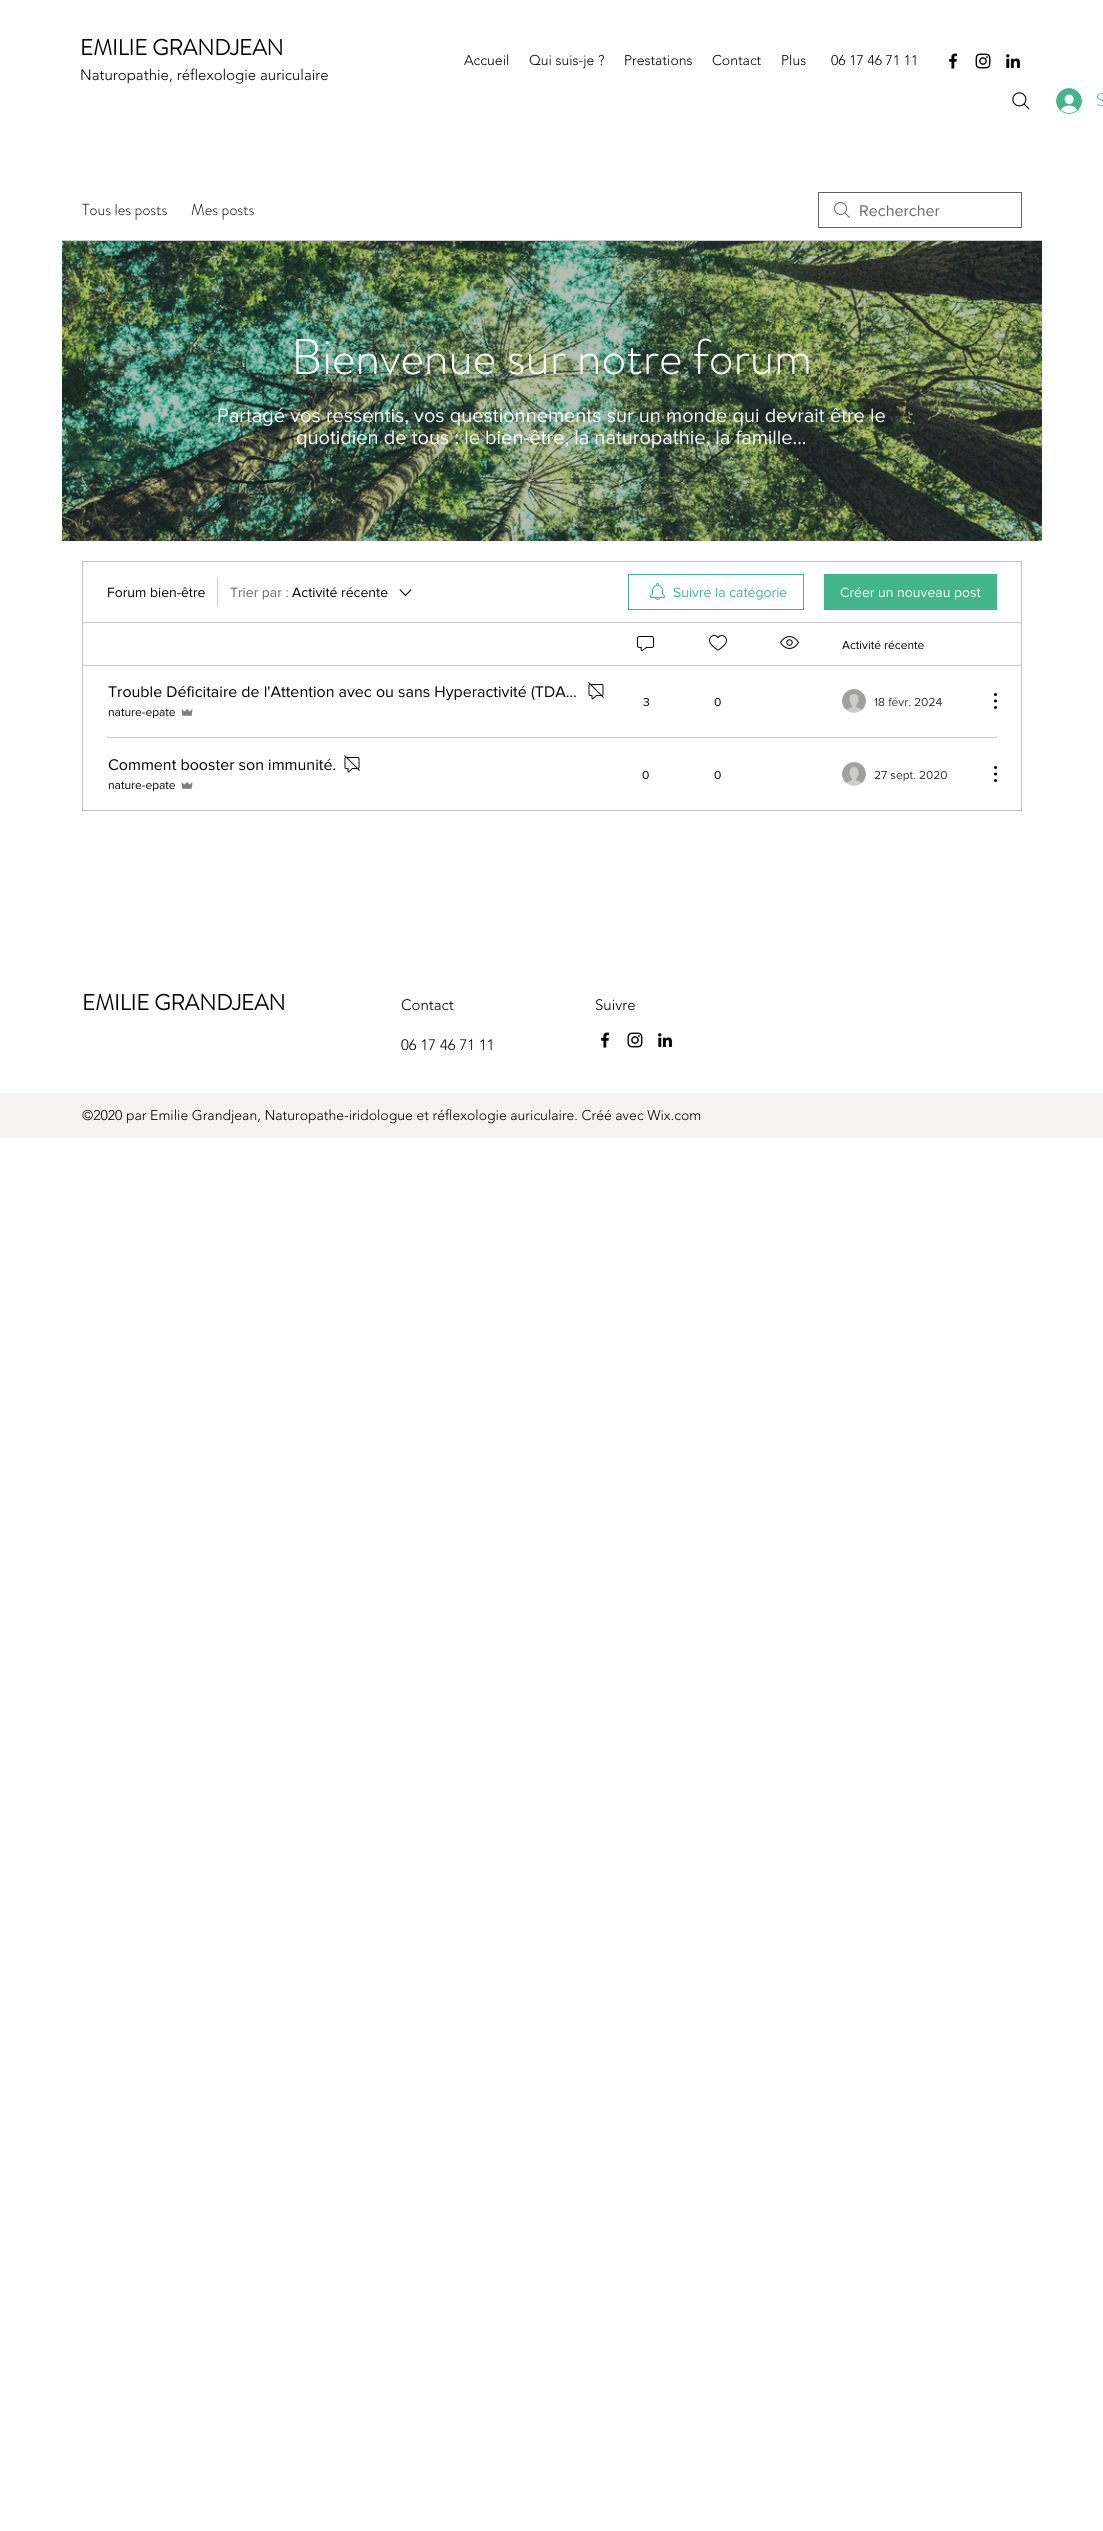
#include <cairo.h>
#include <math.h>
#include <stddef.h>


static void rgb(cairo_t *cr, int r, int g, int b)
{
	cairo_set_source_rgb(cr, r / 255.0, g / 255.0, b / 255.0);
}

static void face(cairo_t *cr, const char *family, double size, int italic, int bold)
{
	cairo_select_font_face(cr, family, italic ? CAIRO_FONT_SLANT_ITALIC : CAIRO_FONT_SLANT_NORMAL,
		bold ? CAIRO_FONT_WEIGHT_BOLD : CAIRO_FONT_WEIGHT_NORMAL);
	cairo_set_font_size(cr, size);
}

static void label(cairo_t *cr, double x, double y, const char *s)
{
	cairo_move_to(cr, x, y);
	cairo_show_text(cr, s);
}

static void rect(cairo_t *cr, double x, double y, double w, double h)
{
	cairo_rectangle(cr, x, y, w, h);
	cairo_fill(cr);
}

static void image(cairo_t *cr, const char *path, double x, double y, double w, double h)
{
	cairo_surface_t *image = cairo_image_surface_create_from_png(path);
	cairo_save(cr);
	cairo_set_source_surface(cr, image, x, y);
	cairo_rectangle(cr, x, y, w, h);
	cairo_fill(cr);
	cairo_restore(cr);
	cairo_surface_destroy(image);
}

static void draw(cairo_t *cr) {
	rgb(cr, 255, 255, 255);
	cairo_paint(cr);
	face(cr, "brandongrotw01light", 22, 0, 1);
	rgb(cr, 0, 0, 0);
	label(cr, 80, 55, "EMILIE GRANDJEAN");
	face(cr, "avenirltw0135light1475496 Light", 15, 0, 0);
	label(cr, 80, 80, "Naturopathie, réflexologie auriculaire");
	face(cr, "avenirltw0135light1475496 Light", 14, 0, 0);
	label(cr, 464, 65, "Accueil");
	label(cr, 529, 65, "Qui suis-je ?");
	label(cr, 624, 65, "Prestations");
	label(cr, 712, 65, "Contact");
	label(cr, 781, 65, "Plus");
	label(cr, 831, 65, "06 17 46 71 11");
	image(cr, "image0.png", 949, 53, 9, 16);
	image(cr, "image1.png", 975, 53, 16, 16);
	image(cr, "image2.png", 1006, 54, 15, 15);
	image(cr, "image3.png", 1012, 92, 18, 18);
	image(cr, "image4.png", 1056, 88, 26, 26);
	face(cr, "brandongrotw01light Light", 18, 0, 0);
	rgb(cr, 66, 181, 141);
	label(cr, 1096, 106, "S");
	rgb(cr, 204, 204, 204);
	rect(cr, 62, 240, 980, 1);
	face(cr, "brandongrotw01light Light", 16, 0, 0);
	rgb(cr, 0, 0, 0);
	label(cr, 82, 215, "Tous les posts");
	label(cr, 191, 215, "Mes posts");
	image(cr, "image5.png", 834, 202, 16, 16);
	cairo_rectangle(cr, 818.5, 192.5, 203, 35);
	rgb(cr, 102, 102, 102);
	cairo_set_line_width(cr, 1);
	cairo_stroke(cr);
	face(cr, "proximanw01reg", 16, 0, 0);
	label(cr, 859, 216, "Rechercher");
	image(cr, "image6.png", 62, 241, 980, 300);
	face(cr, "brandongrotw01light Light", 50, 0, 0);
	rgb(cr, 255, 255, 255);
	label(cr, 291, 374, "Bienvenue sur notre forum");
	face(cr, "proximanw01reg", 20, 0, 0);
	label(cr, 217, 422, "Partagé vos ressentis, vos questionnements sur un monde qui devrait être le");
	label(cr, 296, 444, "quotidien de tous : le bien-être, la naturopathie, la famille...");
	cairo_rectangle(cr, 82.5, 561.5, 939, 249);
	rgb(cr, 191, 191, 191);
	cairo_stroke(cr);
	face(cr, "proximanw01reg", 14, 0, 0);
	rgb(cr, 0, 0, 0);
	label(cr, 107, 597, "Forum bien-être");
	rgb(cr, 204, 204, 204);
	rect(cr, 217, 578, 1, 28);
	rgb(cr, 102, 102, 102);
	label(cr, 230, 597, "Trier par :");
	rgb(cr, 0, 0, 0);
	label(cr, 292, 597, "Activité récente");
	image(cr, "image7.png", 399, 589, 13, 8);
	cairo_rectangle(cr, 628.5, 574.5, 175, 35);
	rgb(cr, 66, 181, 141);
	cairo_stroke(cr);
	image(cr, "image8.png", 650, 583, 15, 17);
	label(cr, 673, 597, "Suivre la catégorie");
	rect(cr, 824, 574, 173, 36);
	rgb(cr, 255, 255, 255);
	label(cr, 840, 597, "Créer un nouveau post");
	rgb(cr, 204, 204, 204);
	rect(cr, 83, 622, 938, 1);
	image(cr, "image9.png", 637, 636, 17, 15);
	image(cr, "image10.png", 709, 635, 18, 16);
	image(cr, "image11.png", 780, 636, 19, 13);
	face(cr, "proximanw01reg", 12, 0, 0);
	rgb(cr, 0, 0, 0);
	label(cr, 842, 649, "Activité récente");
	rgb(cr, 204, 204, 204);
	rect(cr, 83, 665, 938, 1);
	face(cr, "proximanw01reg", 16, 0, 0);
	rgb(cr, 0, 0, 0);
	label(cr, 108, 697, "Trouble Déficitaire de l'Attention avec ou sans Hyperactivité (TDA…");
	image(cr, "image12.png", 588, 682, 16, 18);
	face(cr, "proximanw01reg", 12, 0, 0);
	label(cr, 108, 716, "nature-epate");
	image(cr, "image13.png", 181, 709, 12, 7);
	label(cr, 643, 706, "3");
	label(cr, 714, 706, "0");
	image(cr, "image14.png", 842, 689, 24, 24);
	rgb(cr, 51, 51, 51);
	label(cr, 874, 706, "18 févr. 2024");
	image(cr, "image15.png", 994, 693, 3, 16);
	rgb(cr, 204, 204, 204);
	rect(cr, 107, 737, 890, 1);
	face(cr, "proximanw01reg", 16, 0, 0);
	rgb(cr, 0, 0, 0);
	label(cr, 108, 770, "Comment booster son immunité.");
	image(cr, "image12.png", 344, 755, 16, 18);
	face(cr, "proximanw01reg", 12, 0, 0);
	label(cr, 108, 789, "nature-epate");
	image(cr, "image13.png", 181, 782, 12, 7);
	label(cr, 642, 779, "0");
	label(cr, 714, 779, "0");
	image(cr, "image14.png", 842, 762, 24, 24);
	rgb(cr, 51, 51, 51);
	label(cr, 874, 779, "27 sept. 2020");
	image(cr, "image15.png", 994, 766, 3, 16);
	face(cr, "brandongrotw01light", 22, 0, 1);
	rgb(cr, 0, 0, 0);
	label(cr, 82, 1010, "EMILIE GRANDJEAN");
	face(cr, "avenirltw0135light1475496 Light", 15, 0, 0);
	label(cr, 401, 1010, "Contact");
	label(cr, 595, 1010, "Suivre");
	label(cr, 401, 1050, "06 17 46 71 11");
	image(cr, "image0.png", 601, 1032, 9, 16);
	image(cr, "image1.png", 627, 1032, 16, 16);
	image(cr, "image2.png", 658, 1033, 15, 15);
	rgb(cr, 244, 243, 241);
	rect(cr, 0, 1093, 1103, 45);
	face(cr, "avenirltw0135light1475496 Light", 14, 0, 0);
	rgb(cr, 0, 0, 0);
	label(cr, 82, 1120, "©2020 par Emilie Grandjean, Naturopathe-iridologue et réflexologie auriculaire. Créé avec Wix.com");
}

int main(void) {
	cairo_surface_t *surface = cairo_image_surface_create(CAIRO_FORMAT_RGB24, 1103, 2531);
	cairo_t *cr = cairo_create(surface);
	cairo_font_options_t *options = cairo_font_options_create();
	cairo_font_options_set_hint_metrics(options, CAIRO_HINT_METRICS_OFF);
	cairo_font_options_set_hint_style(options, CAIRO_HINT_STYLE_NONE);
	cairo_set_font_options(cr, options);
	cairo_set_miter_limit(cr, 4);
	draw(cr);
	cairo_surface_write_to_png(surface, "render.png");
	cairo_font_options_destroy(options);
	cairo_destroy(cr);
	cairo_surface_destroy(surface);
	return 0;
}
